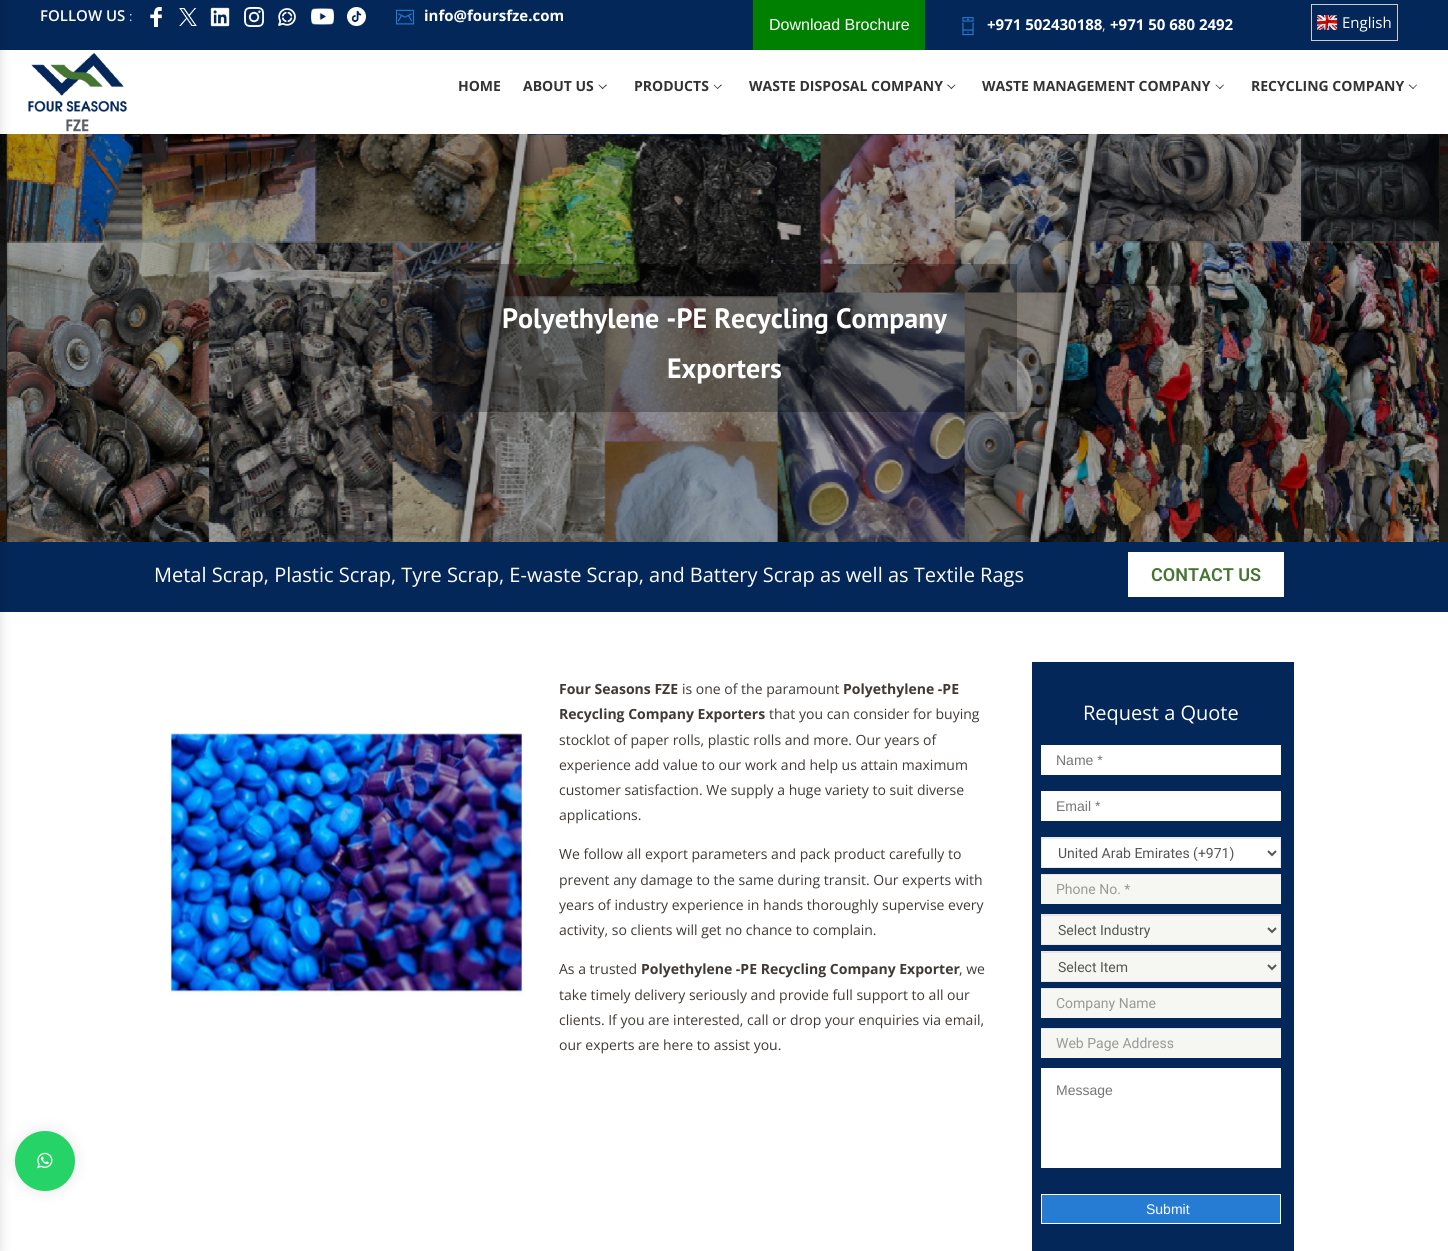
#include <cairo.h>
#include <math.h>
#include <stddef.h>


static void rgb(cairo_t *cr, int r, int g, int b)
{
	cairo_set_source_rgb(cr, r / 255.0, g / 255.0, b / 255.0);
}

static void face(cairo_t *cr, const char *family, double size, int italic, int bold)
{
	cairo_select_font_face(cr, family, italic ? CAIRO_FONT_SLANT_ITALIC : CAIRO_FONT_SLANT_NORMAL,
		bold ? CAIRO_FONT_WEIGHT_BOLD : CAIRO_FONT_WEIGHT_NORMAL);
	cairo_set_font_size(cr, size);
}

static void label(cairo_t *cr, double x, double y, const char *s)
{
	cairo_move_to(cr, x, y);
	cairo_show_text(cr, s);
}

static void rect(cairo_t *cr, double x, double y, double w, double h)
{
	cairo_rectangle(cr, x, y, w, h);
	cairo_fill(cr);
}

static void rrect(cairo_t *cr, double x, double y, double w, double h, double r)
{
	cairo_new_sub_path(cr);
	cairo_arc(cr, x + w - r, y + h - r, r, 0, M_PI / 2);
	cairo_arc(cr, x + r, y + h - r, r, M_PI / 2, M_PI);
	cairo_arc(cr, x + r, y + r, r, M_PI, 1.5 * M_PI);
	cairo_arc(cr, x + w - r, y + r, r, 1.5 * M_PI, 2 * M_PI);
	cairo_close_path(cr);
}

static void soft_shadow(cairo_t *cr, double x, double y, double w, double h, double r, double blur, double alpha)
{
	cairo_push_group_with_content(cr, CAIRO_CONTENT_ALPHA);
	cairo_set_operator(cr, CAIRO_OPERATOR_SOURCE);
	for (int i = 15; i >= -15 && fmin(w, h) + blur * i / 3 > 0; i -= 2) {
		double e = blur * i / 6;
		cairo_set_source_rgba(cr, 0, 0, 0, alpha * erfc((i - 1) / 8.5) / 2);
		rrect(cr, x - e, y - e, w + 2 * e, h + 2 * e, fmax(0, fmin(r + e + blur * .6, fmin(w, h) / 2 + e)));
		cairo_fill(cr);
	}
	cairo_pattern_t *soft = cairo_pop_group(cr);
	cairo_mask(cr, soft);
	cairo_pattern_destroy(soft);
}

static void image(cairo_t *cr, const char *path, double x, double y, double w, double h)
{
	cairo_surface_t *image = cairo_image_surface_create_from_png(path);
	cairo_save(cr);
	cairo_set_source_surface(cr, image, x, y);
	cairo_rectangle(cr, x, y, w, h);
	cairo_fill(cr);
	cairo_restore(cr);
	cairo_surface_destroy(image);
}

static void draw(cairo_t *cr) {
	rgb(cr, 255, 255, 255);
	cairo_paint(cr);
	rgb(cr, 4, 39, 89);
	rect(cr, 0, 0, 1448, 50);
	image(cr, "image11.png", 0, 134, 1448, 408);
	rect(cr, 0, 542, 1448, 70);
	rgb(cr, 0, 0, 0);
	soft_shadow(cr, 20, 1136, 50, 50, 25, 10, 0.15);
	rgb(cr, 37, 211, 102);
	cairo_arc(cr, 45, 1161, 30, 0, 2 * M_PI);
	cairo_fill(cr);
	rgb(cr, 0, 0, 0);
	soft_shadow(cr, -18, 0, 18, 1251, 0, 6, 0.14);
	face(cr, "Open Sans SemiBold", 15, 0, 0);
	rgb(cr, 255, 255, 255);
	label(cr, 40, 21, "FOLLOW US");
	face(cr, "Open Sans", 13, 0, 0);
	rgb(cr, 218, 218, 218);
	label(cr, 129, 21, ":");
	image(cr, "image0.png", 150, 7, 12, 20);
	image(cr, "image1.png", 179, 8, 18, 18);
	image(cr, "image2.png", 210, 7, 20, 20);
	image(cr, "image3.png", 244, 7, 20, 20);
	image(cr, "image4.png", 278, 8, 18, 18);
	image(cr, "image5.png", 311, 8, 23, 17);
	image(cr, "image6.png", 347, 7, 19, 19);
	image(cr, "image7.png", 396, 9, 18, 16);
	face(cr, "Open Sans", 15, 0, 1);
	rgb(cr, 255, 255, 255);
	label(cr, 424, 21, "info@foursfze.com");
	rgb(cr, 0, 128, 0);
	rect(cr, 753, 0, 172, 50);
	face(cr, "Liberation Sans", 16, 0, 0);
	rgb(cr, 255, 255, 255);
	label(cr, 769, 30, "Download Brochure");
	image(cr, "image8.png", 962, 17, 12, 19);
	face(cr, "Open Sans", 15, 0, 1);
	label(cr, 987, 30, "+971 502430188");
	face(cr, "Open Sans", 14, 0, 0);
	rgb(cr, 218, 218, 218);
	label(cr, 1102, 30, ",");
	face(cr, "Open Sans", 15, 0, 1);
	rgb(cr, 255, 255, 255);
	label(cr, 1110, 30, "+971 50 680 2492");
	cairo_rectangle(cr, 1311.5, 4.5, 86, 36);
	rgb(cr, 204, 204, 204);
	cairo_set_line_width(cr, 1);
	cairo_stroke(cr);
	image(cr, "image9.png", 1317, 15, 21, 15);
	face(cr, "Open Sans", 15, 0, 0);
	rgb(cr, 255, 255, 255);
	label(cr, 1342, 28, "English");
	image(cr, "image10.png", 28, 52, 99, 80);
	face(cr, "Open Sans", 14, 0, 1);
	rgb(cr, 51, 51, 51);
	label(cr, 458, 91, "HOME");
	label(cr, 523, 91, "ABOUT US");
	cairo_new_path(cr);
	cairo_move_to(cr, 606, 84.5);
	cairo_line_to(cr, 607, 85);
	cairo_line_to(cr, 602.5, 89);
	cairo_line_to(cr, 602, 88.5);
	cairo_close_path(cr);
	cairo_fill(cr);
	cairo_new_path(cr);
	cairo_move_to(cr, 599, 84.5);
	cairo_line_to(cr, 603.5, 88.5);
	cairo_line_to(cr, 602.5, 89);
	cairo_line_to(cr, 598.5, 85);
	cairo_close_path(cr);
	cairo_fill(cr);
	label(cr, 634, 91, "PRODUCTS");
	cairo_new_path(cr);
	cairo_move_to(cr, 721, 84.5);
	cairo_line_to(cr, 722, 85);
	cairo_line_to(cr, 717.5, 89);
	cairo_line_to(cr, 717, 88.5);
	cairo_close_path(cr);
	cairo_fill(cr);
	cairo_new_path(cr);
	cairo_move_to(cr, 714, 84.5);
	cairo_line_to(cr, 718, 88.5);
	cairo_line_to(cr, 717.5, 89);
	cairo_line_to(cr, 713.5, 85);
	cairo_close_path(cr);
	cairo_fill(cr);
	label(cr, 749, 91, "WASTE DISPOSAL COMPANY");
	cairo_new_path(cr);
	cairo_move_to(cr, 955, 84.5);
	cairo_line_to(cr, 955.5, 85);
	cairo_line_to(cr, 951.5, 89);
	cairo_line_to(cr, 950.5, 88.5);
	cairo_close_path(cr);
	cairo_fill(cr);
	cairo_new_path(cr);
	cairo_move_to(cr, 948, 84.5);
	cairo_line_to(cr, 952, 88.5);
	cairo_line_to(cr, 951.5, 89);
	cairo_line_to(cr, 947, 85);
	cairo_close_path(cr);
	cairo_fill(cr);
	label(cr, 982, 91, "WASTE MANAGEMENT COMPANY");
	cairo_new_path(cr);
	cairo_move_to(cr, 1223.5, 84.5);
	cairo_line_to(cr, 1224, 85);
	cairo_line_to(cr, 1220, 89);
	cairo_line_to(cr, 1219, 88.5);
	cairo_close_path(cr);
	cairo_fill(cr);
	cairo_new_path(cr);
	cairo_move_to(cr, 1216, 84.5);
	cairo_line_to(cr, 1220.5, 88.5);
	cairo_line_to(cr, 1220, 89);
	cairo_line_to(cr, 1215.5, 85);
	cairo_close_path(cr);
	cairo_fill(cr);
	label(cr, 1251, 91, "RECYCLING COMPANY");
	cairo_new_path(cr);
	cairo_move_to(cr, 1416.5, 84.5);
	cairo_line_to(cr, 1417, 85);
	cairo_line_to(cr, 1413, 89);
	cairo_line_to(cr, 1412.5, 88.5);
	cairo_close_path(cr);
	cairo_fill(cr);
	cairo_new_path(cr);
	cairo_move_to(cr, 1409.5, 84.5);
	cairo_line_to(cr, 1413.5, 88.5);
	cairo_line_to(cr, 1413, 89);
	cairo_line_to(cr, 1408.5, 85);
	cairo_close_path(cr);
	cairo_fill(cr);
	cairo_set_source_rgba(cr, 0, 0, 0, 0.3);
	rect(cr, 432, 264, 585, 148);
	face(cr, "PT Sans", 28, 0, 1);
	rgb(cr, 255, 255, 255);
	label(cr, 502, 328, "Polyethylene -PE Recycling Company");
	label(cr, 667, 378, "Exporters");
	face(cr, "Open Sans", 20, 0, 0);
	label(cr, 154, 582, "Metal Scrap, Plastic Scrap, Tyre Scrap, E-waste Scrap, and Battery Scrap as well as Textile Rags");
	rect(cr, 1128, 552, 156, 45);
	face(cr, "Roboto SemiBold", 18, 0, 0);
	rgb(cr, 69, 117, 50);
	label(cr, 1151, 581, "CONTACT US");
	image(cr, "image12.png", 37, 1152, 16, 17);
	image(cr, "image13.png", 169, 733, 355, 263);
	face(cr, "Open Sans", 14, 0, 1);
	rgb(cr, 63, 58, 54);
	label(cr, 559, 694, "Four Seasons FZE");
	face(cr, "Open Sans", 14, 0, 0);
	label(cr, 682, 694, "is one of the paramount");
	face(cr, "Open Sans", 14, 0, 1);
	label(cr, 843, 694, "Polyethylene -PE");
	label(cr, 559, 719, "Recycling Company Exporters");
	face(cr, "Open Sans", 14, 0, 0);
	label(cr, 769, 719, "that you can consider for buying");
	label(cr, 559, 745, "stocklot of paper rolls, plastic rolls and more. Our years of");
	label(cr, 559, 770, "experience add value to our work and help us attain maximum");
	label(cr, 559, 795, "customer satisfaction. We supply a huge variety to suit diverse");
	label(cr, 559, 820, "applications.");
	label(cr, 559, 859, "We follow all export parameters and pack product carefully to");
	label(cr, 559, 885, "prevent any damage to the same during transit. Our experts with");
	label(cr, 559, 910, "years of industry experience in hands thoroughly supervise every");
	label(cr, 559, 935, "activity, so clients will get no chance to complain.");
	label(cr, 559, 974, "As a trusted");
	face(cr, "Open Sans", 14, 0, 1);
	label(cr, 641, 974, "Polyethylene -PE Recycling Company Exporter");
	face(cr, "Open Sans", 14, 0, 0);
	label(cr, 959, 974, ", we");
	label(cr, 559, 1000, "take timely delivery seriously and provide full support to all our");
	label(cr, 559, 1025, "clients. If you are interested, call or drop your enquiries via email,");
	label(cr, 559, 1050, "our experts are here to assist you.");
	rgb(cr, 4, 39, 89);
	rect(cr, 1032, 662, 262, 589);
	face(cr, "Open Sans", 20, 0, 0);
	rgb(cr, 255, 255, 255);
	label(cr, 1083, 720, "Request a Quote");
	rect(cr, 1041, 745, 240, 30);
	face(cr, "Liberation Sans", 14, 0, 0);
	rgb(cr, 117, 117, 117);
	label(cr, 1056, 765, "Name *");
	rgb(cr, 255, 255, 255);
	rect(cr, 1041, 791, 240, 30);
	rgb(cr, 117, 117, 117);
	label(cr, 1056, 811, "Email *");
	rgb(cr, 255, 255, 255);
	rect(cr, 1042, 839, 238, 28);
	rgb(cr, 236, 236, 236);
	rect(cr, 1042, 838, 238, 1);
	cairo_rectangle(cr, 1041.5, 837.5, 239, 30);
	rgb(cr, 233, 233, 233);
	cairo_stroke(cr);
	cairo_new_path(cr);
	cairo_move_to(cr, 1268, 851);
	cairo_line_to(cr, 1272, 855);
	cairo_line_to(cr, 1276, 851);
	rgb(cr, 85, 85, 85);
	cairo_set_line_width(cr, 2);
	cairo_stroke(cr);
	face(cr, "Roboto", 14, 0, 0);
	label(cr, 1058, 858, "United Arab Emirates (+971)");
	rgb(cr, 246, 247, 243);
	rect(cr, 1041, 875, 240, 29);
	rgb(cr, 228, 228, 225);
	rect(cr, 1041, 874, 240, 1);
	rgb(cr, 153, 153, 153);
	label(cr, 1056, 894, "Phone No. *");
	rgb(cr, 246, 247, 243);
	rect(cr, 1042, 916, 238, 28);
	rgb(cr, 228, 228, 225);
	rect(cr, 1042, 915, 238, 1);
	cairo_rectangle(cr, 1041.5, 914.5, 239, 30);
	rgb(cr, 233, 233, 233);
	cairo_set_line_width(cr, 1);
	cairo_stroke(cr);
	cairo_new_path(cr);
	cairo_move_to(cr, 1268, 928);
	cairo_line_to(cr, 1272, 932);
	cairo_line_to(cr, 1276, 928);
	rgb(cr, 85, 85, 85);
	cairo_set_line_width(cr, 2);
	cairo_stroke(cr);
	label(cr, 1058, 935, "Select Industry");
	rgb(cr, 246, 247, 243);
	rect(cr, 1042, 953, 238, 28);
	rgb(cr, 228, 228, 225);
	rect(cr, 1042, 952, 238, 1);
	cairo_rectangle(cr, 1041.5, 951.5, 239, 30);
	rgb(cr, 233, 233, 233);
	cairo_set_line_width(cr, 1);
	cairo_stroke(cr);
	cairo_new_path(cr);
	cairo_move_to(cr, 1268, 965);
	cairo_line_to(cr, 1272, 969);
	cairo_line_to(cr, 1276, 965);
	rgb(cr, 85, 85, 85);
	cairo_set_line_width(cr, 2);
	cairo_stroke(cr);
	label(cr, 1058, 972, "Select Item");
	rgb(cr, 246, 247, 243);
	rect(cr, 1041, 989, 240, 29);
	rgb(cr, 228, 228, 225);
	rect(cr, 1041, 988, 240, 1);
	rgb(cr, 153, 153, 153);
	label(cr, 1056, 1008, "Company Name");
	rgb(cr, 246, 247, 243);
	rect(cr, 1041, 1029, 240, 29);
	rgb(cr, 228, 228, 225);
	rect(cr, 1041, 1028, 240, 1);
	rgb(cr, 153, 153, 153);
	label(cr, 1056, 1048, "Web Page Address");
	rgb(cr, 255, 255, 255);
	rect(cr, 1041, 1068, 240, 100);
	face(cr, "Liberation Sans", 14, 0, 0);
	rgb(cr, 117, 117, 117);
	label(cr, 1056, 1095, "Message");
	rgb(cr, 38, 123, 210);
	cairo_rectangle(cr, 1041.5, 1194.5, 239, 29);
	cairo_fill_preserve(cr);
	rgb(cr, 255, 255, 255);
	cairo_set_line_width(cr, 1);
	cairo_stroke(cr);
	label(cr, 1146, 1214, "Submit");
}

int main(void) {
	cairo_surface_t *surface = cairo_image_surface_create(CAIRO_FORMAT_RGB24, 1448, 1251);
	cairo_t *cr = cairo_create(surface);
	cairo_font_options_t *options = cairo_font_options_create();
	cairo_font_options_set_hint_metrics(options, CAIRO_HINT_METRICS_OFF);
	cairo_font_options_set_hint_style(options, CAIRO_HINT_STYLE_NONE);
	cairo_set_font_options(cr, options);
	cairo_set_miter_limit(cr, 4);
	draw(cr);
	cairo_surface_write_to_png(surface, "render.png");
	cairo_font_options_destroy(options);
	cairo_destroy(cr);
	cairo_surface_destroy(surface);
	return 0;
}
